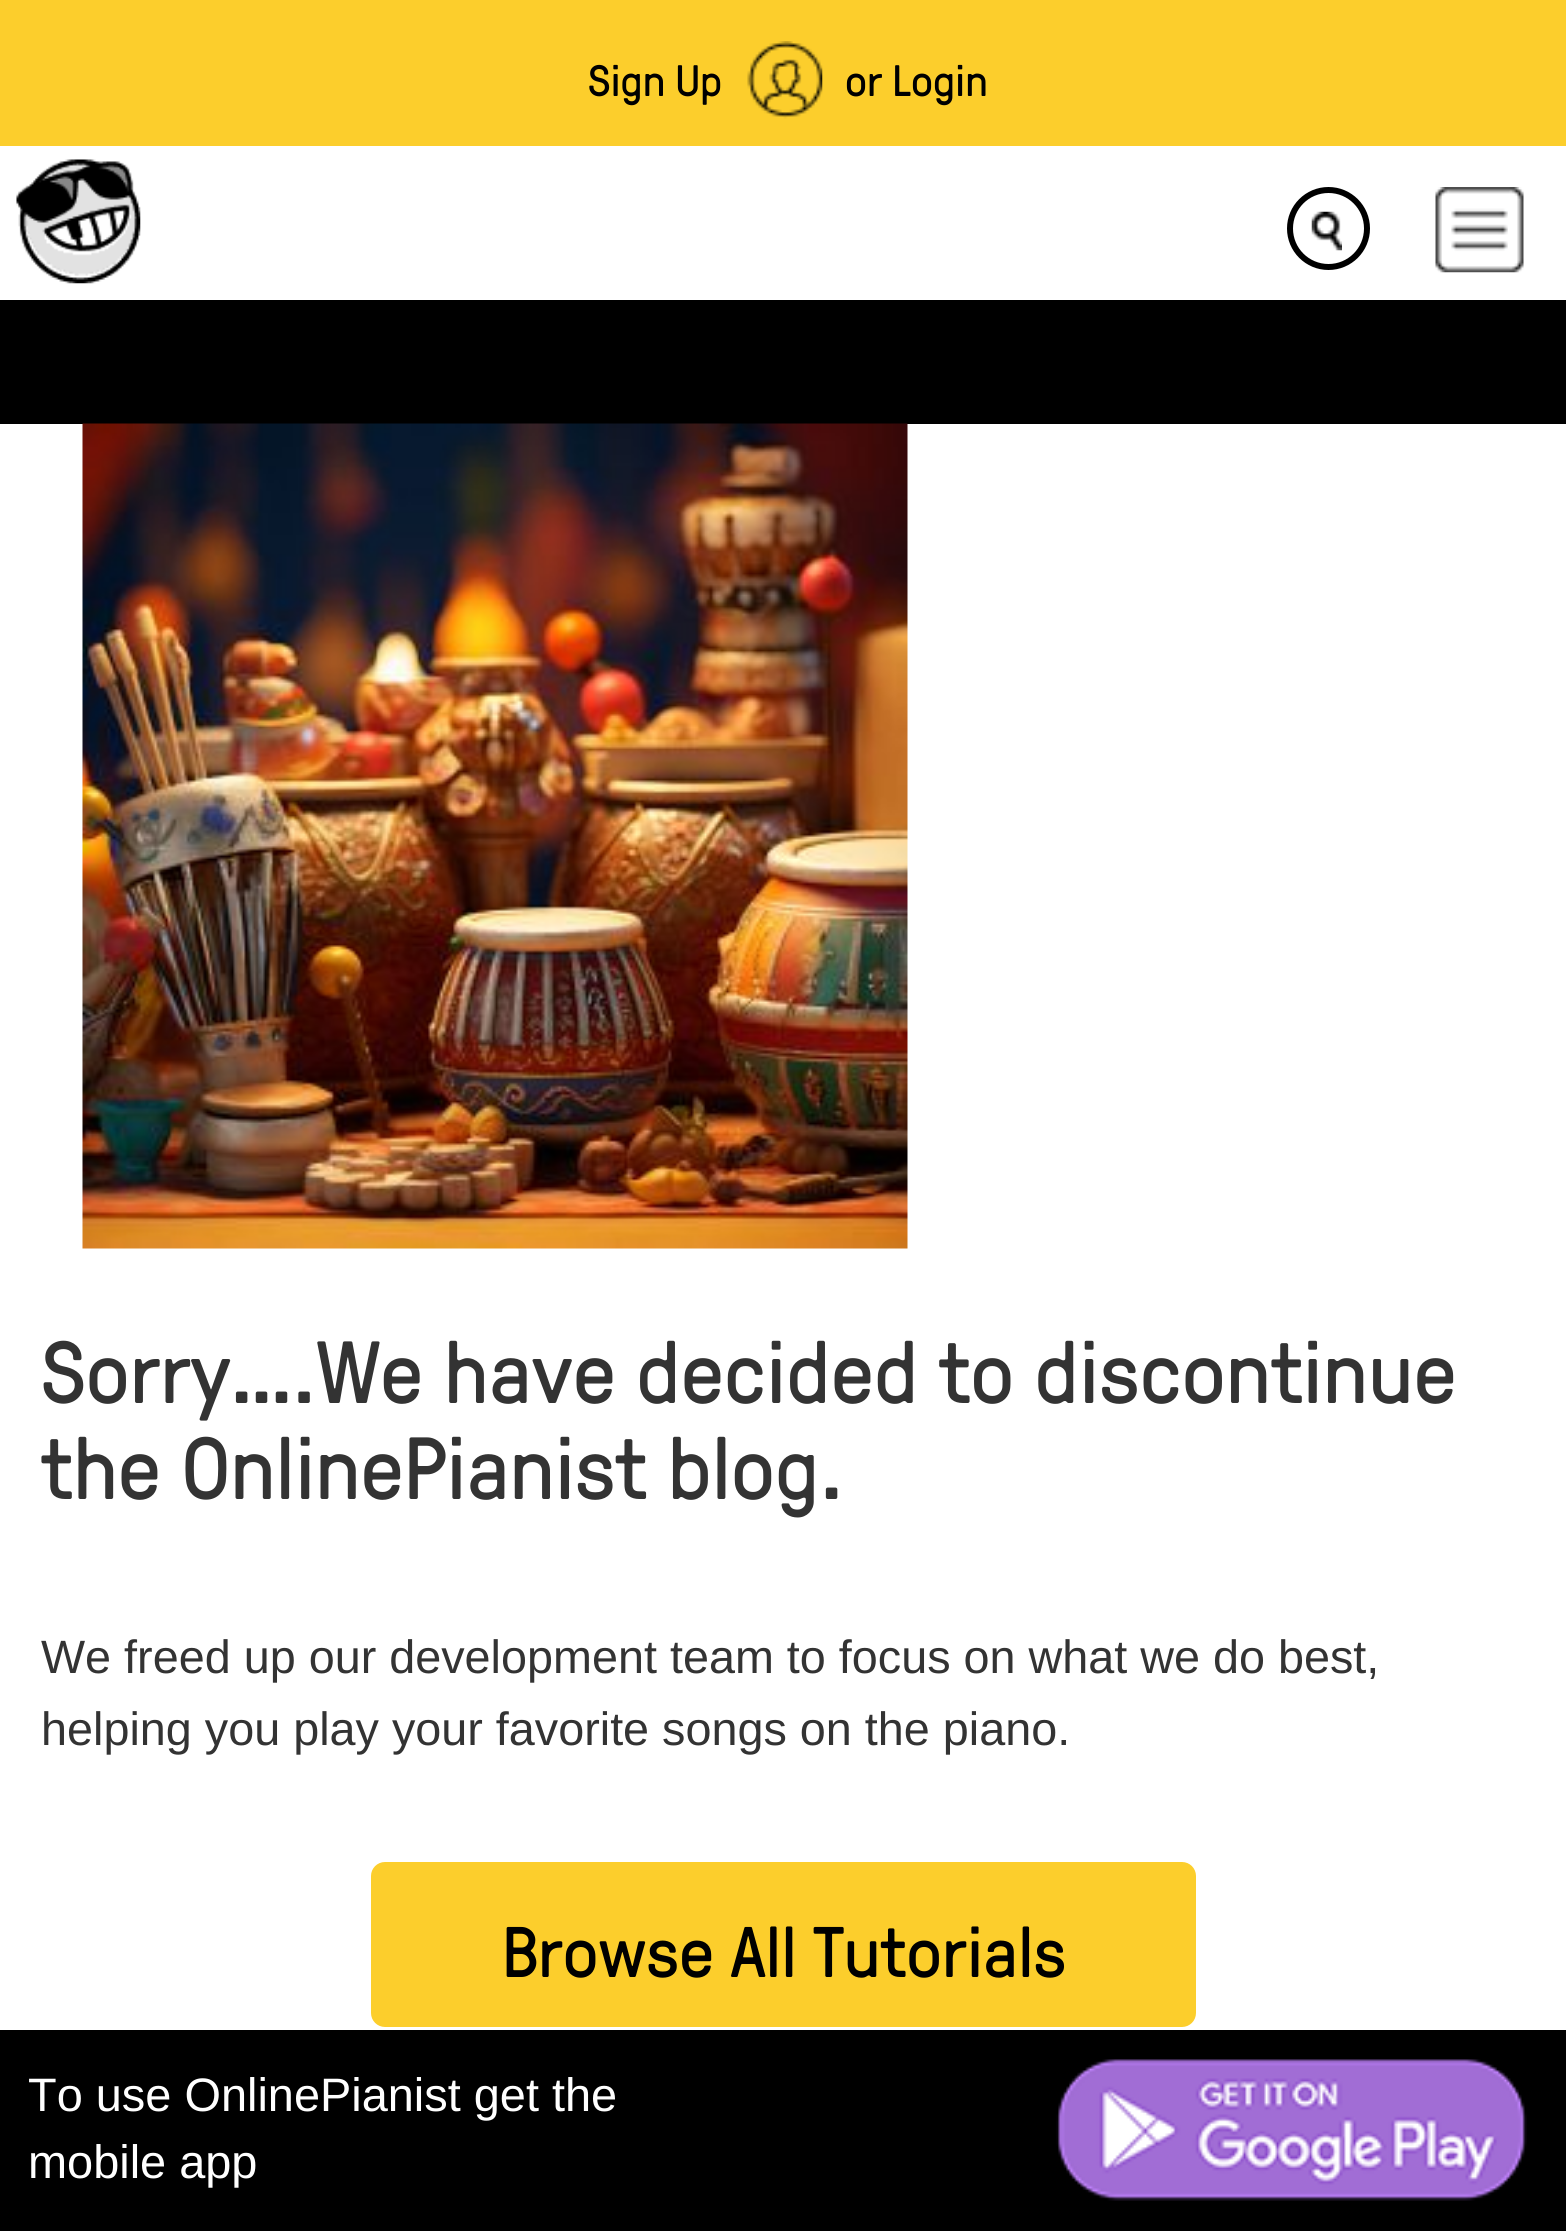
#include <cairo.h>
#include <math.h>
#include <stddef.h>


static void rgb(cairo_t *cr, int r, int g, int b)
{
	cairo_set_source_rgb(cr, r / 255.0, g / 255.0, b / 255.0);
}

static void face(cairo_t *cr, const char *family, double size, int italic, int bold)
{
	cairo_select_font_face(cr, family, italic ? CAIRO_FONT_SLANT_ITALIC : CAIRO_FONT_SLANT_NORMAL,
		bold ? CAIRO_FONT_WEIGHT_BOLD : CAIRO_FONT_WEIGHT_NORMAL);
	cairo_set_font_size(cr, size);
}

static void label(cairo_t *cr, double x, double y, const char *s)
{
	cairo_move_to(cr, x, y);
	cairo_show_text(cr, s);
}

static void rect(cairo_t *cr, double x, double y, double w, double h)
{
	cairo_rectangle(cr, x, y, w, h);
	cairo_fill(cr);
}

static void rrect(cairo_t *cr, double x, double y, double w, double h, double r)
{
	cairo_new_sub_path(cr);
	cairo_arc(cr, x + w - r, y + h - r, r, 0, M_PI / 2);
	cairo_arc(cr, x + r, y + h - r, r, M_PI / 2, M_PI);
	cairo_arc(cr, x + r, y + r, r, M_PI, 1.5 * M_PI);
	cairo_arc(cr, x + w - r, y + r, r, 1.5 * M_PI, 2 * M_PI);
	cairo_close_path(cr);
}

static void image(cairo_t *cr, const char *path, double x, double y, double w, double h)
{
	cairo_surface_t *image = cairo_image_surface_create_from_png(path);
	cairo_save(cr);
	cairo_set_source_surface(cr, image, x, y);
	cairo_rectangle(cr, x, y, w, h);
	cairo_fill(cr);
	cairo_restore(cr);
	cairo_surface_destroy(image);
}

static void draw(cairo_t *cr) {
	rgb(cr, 255, 255, 255);
	cairo_paint(cr);
	rgb(cr, 252, 206, 44);
	rect(cr, 0, 0, 1566, 146);
	face(cr, "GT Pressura", 44, 0, 0);
	rgb(cr, 0, 0, 0);
	label(cr, 588, 96, "Sign Up");
	image(cr, "image0.png", 747, 41, 76, 78);
	label(cr, 845, 96, "or Login");
	image(cr, "image1.png", 16, 159, 125, 125);
	cairo_arc(cr, 1328.5, 228.5, 38.5, 0, 2 * M_PI);
	cairo_set_line_width(cr, 6);
	cairo_stroke(cr);
	image(cr, "image2.png", 1311, 211, 31, 40);
	image(cr, "image3.png", 1435, 187, 89, 86);
	rect(cr, 0, 300, 1566, 124);
	image(cr, "image4.png", 82, 423, 826, 826);
	face(cr, "GT Pressura", 88, 0, 0);
	rgb(cr, 51, 51, 51);
	label(cr, 41, 1403, "Sorry….We have decided to discontinue");
	label(cr, 41, 1499, "the OnlinePianist blog.");
	face(cr, "Liberation Sans", 46.75, 0, 0);
	label(cr, 41, 1673, "We freed up our development team to focus on what we do best,");
	label(cr, 41, 1745, "helping you play your favorite songs on the piano.");
	rgb(cr, 252, 206, 44);
	rrect(cr, 371, 1862, 825, 165, 14);
	cairo_fill(cr);
	face(cr, "GT Pressura", 71.5, 0, 0);
	rgb(cr, 0, 0, 0);
	label(cr, 502, 1977, "Browse All Tutorials");
	rect(cr, 0, 2030, 1566, 201);
	face(cr, "Liberation Sans", 46.9, 0, 0);
	rgb(cr, 255, 255, 255);
	label(cr, 28, 2111, "To use OnlinePianist get the");
	label(cr, 28, 2178, "mobile app");
	image(cr, "image5.png", 1056, 2059, 471, 142);
}

int main(void) {
	cairo_surface_t *surface = cairo_image_surface_create(CAIRO_FORMAT_RGB24, 1566, 2231);
	cairo_t *cr = cairo_create(surface);
	cairo_font_options_t *options = cairo_font_options_create();
	cairo_font_options_set_hint_metrics(options, CAIRO_HINT_METRICS_OFF);
	cairo_font_options_set_hint_style(options, CAIRO_HINT_STYLE_NONE);
	cairo_set_font_options(cr, options);
	cairo_set_miter_limit(cr, 4);
	draw(cr);
	cairo_surface_write_to_png(surface, "render.png");
	cairo_font_options_destroy(options);
	cairo_destroy(cr);
	cairo_surface_destroy(surface);
	return 0;
}
